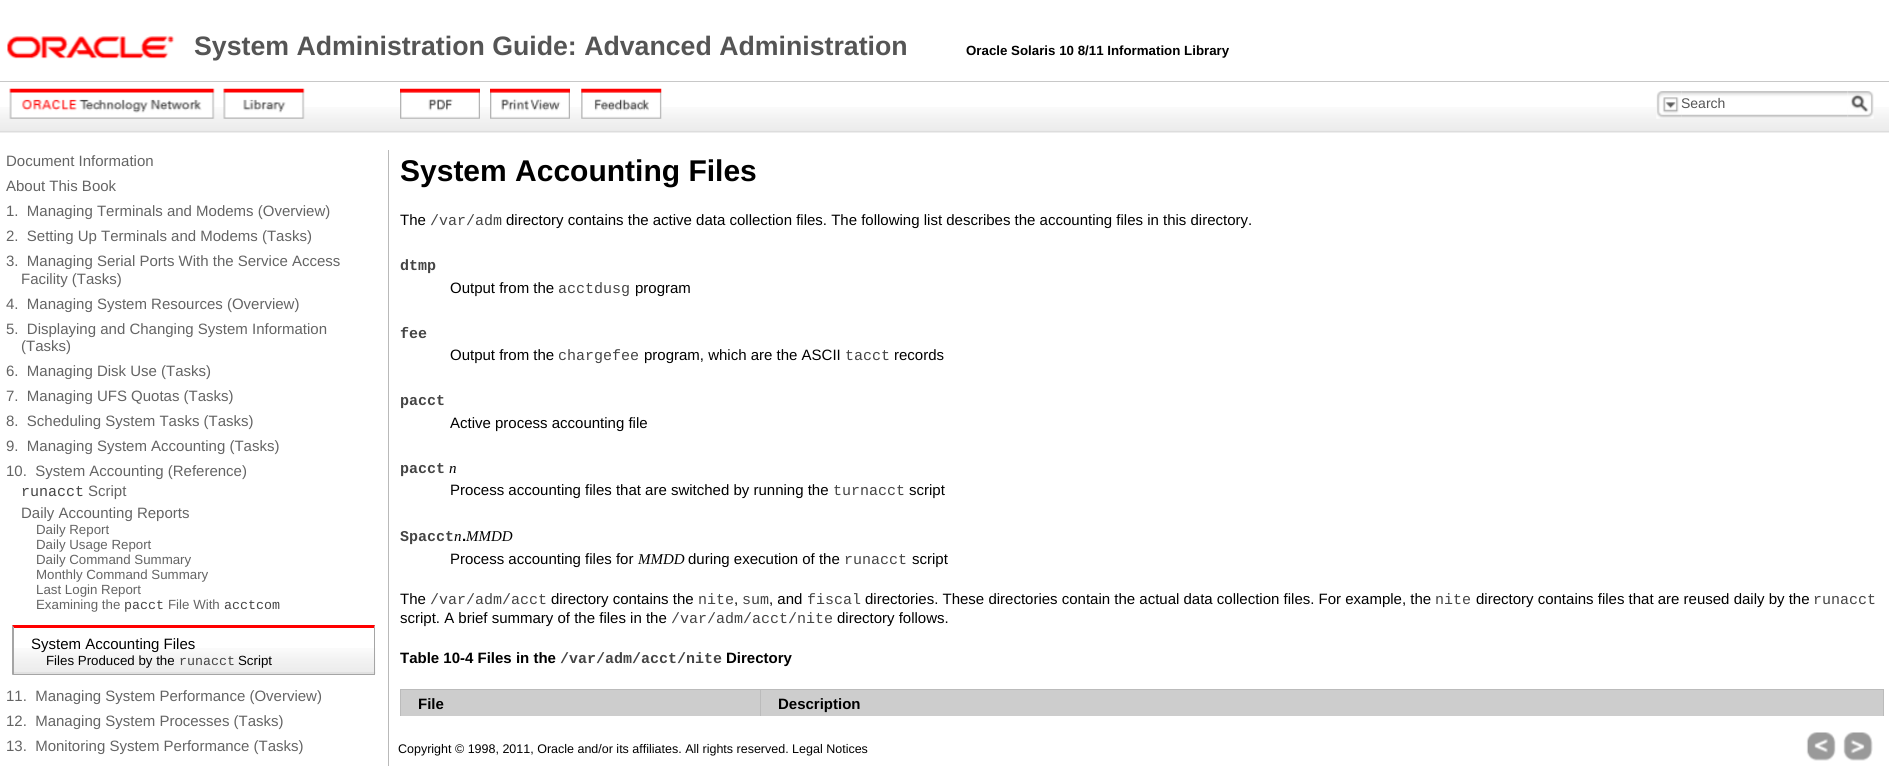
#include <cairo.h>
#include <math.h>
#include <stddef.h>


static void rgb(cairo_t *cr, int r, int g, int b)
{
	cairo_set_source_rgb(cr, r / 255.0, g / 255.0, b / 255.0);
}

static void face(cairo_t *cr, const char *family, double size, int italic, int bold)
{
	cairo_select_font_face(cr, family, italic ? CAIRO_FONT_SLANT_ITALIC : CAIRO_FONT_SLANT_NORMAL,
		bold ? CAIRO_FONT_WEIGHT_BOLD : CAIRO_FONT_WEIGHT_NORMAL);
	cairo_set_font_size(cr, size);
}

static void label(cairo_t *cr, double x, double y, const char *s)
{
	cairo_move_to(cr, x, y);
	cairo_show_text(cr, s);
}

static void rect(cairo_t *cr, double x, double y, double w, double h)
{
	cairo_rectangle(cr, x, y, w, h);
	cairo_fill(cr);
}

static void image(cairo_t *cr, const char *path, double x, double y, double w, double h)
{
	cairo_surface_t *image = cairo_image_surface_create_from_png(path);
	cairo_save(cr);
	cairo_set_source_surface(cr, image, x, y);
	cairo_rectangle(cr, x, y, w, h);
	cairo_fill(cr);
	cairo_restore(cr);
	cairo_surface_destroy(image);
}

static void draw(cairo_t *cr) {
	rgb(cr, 255, 255, 255);
	cairo_paint(cr);
	image(cr, "image0.png", 7, 36, 168, 23);
	face(cr, "Liberation Sans", 26.7, 0, 1);
	rgb(cr, 85, 85, 85);
	label(cr, 194, 55, "System Administration Guide: Advanced Administration");
	face(cr, "Liberation Sans", 13.3, 0, 1);
	rgb(cr, 0, 0, 0);
	label(cr, 966, 55, "Oracle Solaris 10 8/11 Information Library");
	image(cr, "image1.png", 0, 107, 1889, 26);
	rgb(cr, 200, 200, 200);
	rect(cr, 0, 81, 1889, 1);
	image(cr, "image2.png", 9, 88, 206, 31);
	image(cr, "image3.png", 223, 88, 82, 31);
	image(cr, "image4.png", 400, 88, 80, 31);
	image(cr, "image5.png", 490, 88, 80, 31);
	image(cr, "image6.png", 581, 88, 81, 31);
	image(cr, "image7.png", 1656, 91, 26, 28);
	image(cr, "image8.png", 1681, 91, 168, 27);
	face(cr, "Liberation Sans", 14, 0, 0);
	rgb(cr, 85, 85, 85);
	label(cr, 1681, 108, "Search");
	image(cr, "image9.png", 1847, 91, 27, 28);
	rgb(cr, 185, 185, 185);
	rect(cr, 388, 150, 1, 616);
	face(cr, "Liberation Sans", 15, 0, 0);
	rgb(cr, 100, 100, 100);
	label(cr, 6, 166, "Document Information");
	label(cr, 6, 191, "About This Book");
	label(cr, 6, 216, "1.  Managing Terminals and Modems (Overview)");
	label(cr, 6, 241, "2.  Setting Up Terminals and Modems (Tasks)");
	label(cr, 6, 266, "3.  Managing Serial Ports With the Service Access");
	label(cr, 21, 284, "Facility (Tasks)");
	label(cr, 6, 309, "4.  Managing System Resources (Overview)");
	label(cr, 6, 334, "5.  Displaying and Changing System Information");
	label(cr, 21, 351, "(Tasks)");
	label(cr, 6, 376, "6.  Managing Disk Use (Tasks)");
	label(cr, 6, 401, "7.  Managing UFS Quotas (Tasks)");
	label(cr, 6, 426, "8.  Scheduling System Tasks (Tasks)");
	label(cr, 6, 451, "9.  Managing System Accounting (Tasks)");
	label(cr, 6, 476, "10.  System Accounting (Reference)");
	face(cr, "Liberation Mono", 15, 0, 0);
	rgb(cr, 68, 68, 68);
	label(cr, 21, 496, "runacct");
	face(cr, "Liberation Sans", 15, 0, 0);
	rgb(cr, 100, 100, 100);
	label(cr, 88, 496, "Script");
	label(cr, 21, 518, "Daily Accounting Reports");
	face(cr, "Liberation Sans", 13.3, 0, 0);
	label(cr, 36, 534, "Daily Report");
	label(cr, 36, 549, "Daily Usage Report");
	label(cr, 36, 564, "Daily Command Summary");
	label(cr, 36, 579, "Monthly Command Summary");
	label(cr, 36, 594, "Last Login Report");
	label(cr, 36, 609, "Examining the");
	face(cr, "Liberation Mono", 13.3, 0, 0);
	rgb(cr, 68, 68, 68);
	label(cr, 124, 609, "pacct");
	face(cr, "Liberation Sans", 13.3, 0, 0);
	rgb(cr, 100, 100, 100);
	label(cr, 168, 609, "File With");
	face(cr, "Liberation Mono", 13.3, 0, 0);
	rgb(cr, 68, 68, 68);
	label(cr, 224, 609, "acctcom");
	image(cr, "image10.png", 14, 648, 362, 26);
	rgb(cr, 255, 0, 0);
	cairo_new_path(cr);
	cairo_move_to(cr, 12, 625);
	cairo_line_to(cr, 375, 625);
	cairo_line_to(cr, 374, 628);
	cairo_line_to(cr, 14, 628);
	cairo_close_path(cr);
	cairo_fill(cr);
	rgb(cr, 165, 165, 165);
	cairo_new_path(cr);
	cairo_move_to(cr, 375, 625);
	cairo_line_to(cr, 375, 675);
	cairo_line_to(cr, 374, 674);
	cairo_line_to(cr, 374, 628);
	cairo_close_path(cr);
	cairo_fill(cr);
	rect(cr, 13, 674, 362, 1);
	cairo_new_path(cr);
	cairo_move_to(cr, 12, 675);
	cairo_line_to(cr, 12, 625);
	cairo_line_to(cr, 14, 628);
	cairo_line_to(cr, 14, 674);
	cairo_close_path(cr);
	cairo_fill(cr);
	face(cr, "Liberation Sans", 15, 0, 0);
	rgb(cr, 0, 0, 0);
	label(cr, 31, 649, "System Accounting Files");
	face(cr, "Liberation Sans", 13.3, 0, 0);
	label(cr, 46, 665, "Files Produced by the");
	face(cr, "Liberation Mono", 13.3, 0, 0);
	rgb(cr, 68, 68, 68);
	label(cr, 179, 665, "runacct");
	face(cr, "Liberation Sans", 13.3, 0, 0);
	rgb(cr, 0, 0, 0);
	label(cr, 238, 665, "Script");
	face(cr, "Liberation Sans", 15, 0, 0);
	rgb(cr, 100, 100, 100);
	label(cr, 6, 701, "11.  Managing System Performance (Overview)");
	label(cr, 6, 726, "12.  Managing System Processes (Tasks)");
	label(cr, 6, 751, "13.  Monitoring System Performance (Tasks)");
	face(cr, "Liberation Sans", 30, 0, 1);
	rgb(cr, 0, 0, 0);
	label(cr, 400, 181, "System Accounting Files");
	face(cr, "Liberation Sans", 15, 0, 0);
	label(cr, 400, 225, "The");
	face(cr, "Liberation Mono", 15, 0, 0);
	rgb(cr, 68, 68, 68);
	label(cr, 430, 225, "/var/adm");
	face(cr, "Liberation Sans", 15, 0, 0);
	rgb(cr, 0, 0, 0);
	label(cr, 506, 225, "directory contains the active data collection files. The following list describes the accounting files in this directory.");
	face(cr, "Liberation Mono", 15, 0, 1);
	rgb(cr, 68, 68, 68);
	label(cr, 400, 270, "dtmp");
	face(cr, "Liberation Sans", 15, 0, 0);
	rgb(cr, 0, 0, 0);
	label(cr, 450, 293, "Output from the");
	face(cr, "Liberation Mono", 15, 0, 0);
	rgb(cr, 68, 68, 68);
	label(cr, 558, 293, "acctdusg");
	face(cr, "Liberation Sans", 15, 0, 0);
	rgb(cr, 0, 0, 0);
	label(cr, 635, 293, "program");
	face(cr, "Liberation Mono", 15, 0, 1);
	rgb(cr, 68, 68, 68);
	label(cr, 400, 338, "fee");
	face(cr, "Liberation Sans", 15, 0, 0);
	rgb(cr, 0, 0, 0);
	label(cr, 450, 360, "Output from the");
	face(cr, "Liberation Mono", 15, 0, 0);
	rgb(cr, 68, 68, 68);
	label(cr, 558, 360, "chargefee");
	face(cr, "Liberation Sans", 15, 0, 0);
	rgb(cr, 0, 0, 0);
	label(cr, 644, 360, "program, which are the ASCII");
	face(cr, "Liberation Mono", 15, 0, 0);
	rgb(cr, 68, 68, 68);
	label(cr, 845, 360, "tacct");
	face(cr, "Liberation Sans", 15, 0, 0);
	rgb(cr, 0, 0, 0);
	label(cr, 894, 360, "records");
	face(cr, "Liberation Mono", 15, 0, 1);
	rgb(cr, 68, 68, 68);
	label(cr, 400, 405, "pacct");
	face(cr, "Liberation Sans", 15, 0, 0);
	rgb(cr, 0, 0, 0);
	label(cr, 450, 428, "Active process accounting file");
	face(cr, "Liberation Mono", 15, 0, 1);
	rgb(cr, 68, 68, 68);
	label(cr, 400, 473, "pacct");
	face(cr, "Liberation Serif", 15, 1, 0);
	rgb(cr, 0, 0, 0);
	label(cr, 449, 473, "n");
	face(cr, "Liberation Sans", 15, 0, 0);
	label(cr, 450, 495, "Process accounting files that are switched by running the");
	face(cr, "Liberation Mono", 15, 0, 0);
	rgb(cr, 68, 68, 68);
	label(cr, 833, 495, "turnacct");
	face(cr, "Liberation Sans", 15, 0, 0);
	rgb(cr, 0, 0, 0);
	label(cr, 909, 495, "script");
	face(cr, "Liberation Mono", 15, 0, 1);
	rgb(cr, 68, 68, 68);
	label(cr, 400, 541, "Spacct");
	face(cr, "Liberation Serif", 15, 1, 0);
	rgb(cr, 0, 0, 0);
	label(cr, 454, 541, "n");
	face(cr, "Liberation Sans", 15, 0, 1);
	label(cr, 462, 541, ".");
	face(cr, "Liberation Serif", 15, 1, 0);
	label(cr, 466, 541, "MMDD");
	face(cr, "Liberation Sans", 15, 0, 0);
	label(cr, 450, 564, "Process accounting files for");
	face(cr, "Liberation Serif", 15, 1, 0);
	label(cr, 638, 564, "MMDD");
	face(cr, "Liberation Sans", 15, 0, 0);
	label(cr, 688, 564, "during execution of the");
	face(cr, "Liberation Mono", 15, 0, 0);
	rgb(cr, 68, 68, 68);
	label(cr, 844, 564, "runacct");
	face(cr, "Liberation Sans", 15, 0, 0);
	rgb(cr, 0, 0, 0);
	label(cr, 912, 564, "script");
	label(cr, 400, 604, "The");
	face(cr, "Liberation Mono", 15, 0, 0);
	rgb(cr, 68, 68, 68);
	label(cr, 430, 604, "/var/adm/acct");
	face(cr, "Liberation Sans", 15, 0, 0);
	rgb(cr, 0, 0, 0);
	label(cr, 551, 604, "directory contains the");
	face(cr, "Liberation Mono", 15, 0, 0);
	rgb(cr, 68, 68, 68);
	label(cr, 698, 604, "nite");
	face(cr, "Liberation Sans", 15, 0, 0);
	rgb(cr, 0, 0, 0);
	label(cr, 734, 604, ",");
	face(cr, "Liberation Mono", 15, 0, 0);
	rgb(cr, 68, 68, 68);
	label(cr, 742, 604, "sum");
	face(cr, "Liberation Sans", 15, 0, 0);
	rgb(cr, 0, 0, 0);
	label(cr, 769, 604, ", and");
	face(cr, "Liberation Mono", 15, 0, 0);
	rgb(cr, 68, 68, 68);
	label(cr, 807, 604, "fiscal");
	face(cr, "Liberation Sans", 15, 0, 0);
	rgb(cr, 0, 0, 0);
	label(cr, 865, 604, "directories. These directories contain the actual data collection files. For example, the");
	face(cr, "Liberation Mono", 15, 0, 0);
	rgb(cr, 68, 68, 68);
	label(cr, 1435, 604, "nite");
	face(cr, "Liberation Sans", 15, 0, 0);
	rgb(cr, 0, 0, 0);
	label(cr, 1476, 604, "directory contains files that are reused daily by the");
	face(cr, "Liberation Mono", 15, 0, 0);
	rgb(cr, 68, 68, 68);
	label(cr, 1813, 604, "runacct");
	face(cr, "Liberation Sans", 15, 0, 0);
	rgb(cr, 0, 0, 0);
	label(cr, 400, 623, "script. A brief summary of the files in the");
	face(cr, "Liberation Mono", 15, 0, 0);
	rgb(cr, 68, 68, 68);
	label(cr, 671, 623, "/var/adm/acct/nite");
	face(cr, "Liberation Sans", 15, 0, 0);
	rgb(cr, 0, 0, 0);
	label(cr, 837, 623, "directory follows.");
	face(cr, "Liberation Sans", 15, 0, 1);
	label(cr, 400, 663, "Table 10-4 Files in the");
	face(cr, "Liberation Mono", 15, 0, 1);
	rgb(cr, 68, 68, 68);
	label(cr, 560, 663, "/var/adm/acct/nite");
	face(cr, "Liberation Sans", 15, 0, 1);
	rgb(cr, 0, 0, 0);
	label(cr, 726, 663, "Directory");
	rgb(cr, 187, 187, 187);
	rect(cr, 400, 689, 1484, 27);
	rgb(cr, 205, 205, 205);
	rect(cr, 401, 690, 359, 26);
	rgb(cr, 0, 0, 0);
	label(cr, 418, 709, "File");
	rgb(cr, 205, 205, 205);
	rect(cr, 761, 690, 1122, 26);
	rgb(cr, 0, 0, 0);
	label(cr, 778, 709, "Description");
	face(cr, "Liberation Sans", 12.5, 0, 0);
	label(cr, 398, 753, "Copyright © 1998, 2011, Oracle and/or its affiliates. All rights reserved. Legal Notices");
	image(cr, "image11.png", 1806, 732, 30, 29);
	image(cr, "image12.png", 1843, 732, 30, 29);
}

int main(void) {
	cairo_surface_t *surface = cairo_image_surface_create(CAIRO_FORMAT_RGB24, 1889, 772);
	cairo_t *cr = cairo_create(surface);
	cairo_font_options_t *options = cairo_font_options_create();
	cairo_font_options_set_hint_metrics(options, CAIRO_HINT_METRICS_OFF);
	cairo_font_options_set_hint_style(options, CAIRO_HINT_STYLE_NONE);
	cairo_set_font_options(cr, options);
	cairo_set_miter_limit(cr, 4);
	draw(cr);
	cairo_surface_write_to_png(surface, "render.png");
	cairo_font_options_destroy(options);
	cairo_destroy(cr);
	cairo_surface_destroy(surface);
	return 0;
}
